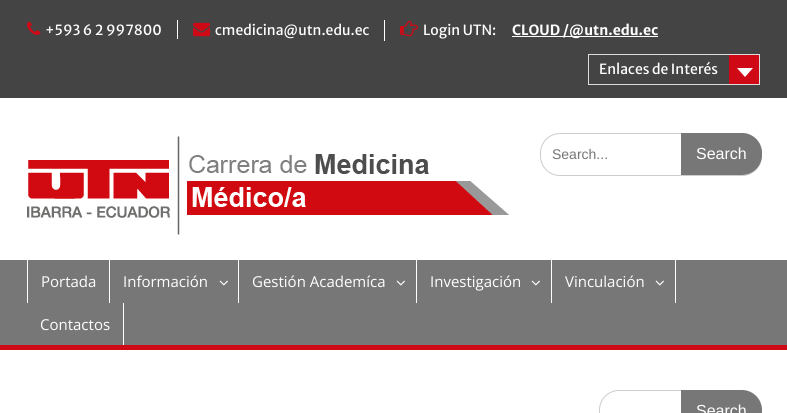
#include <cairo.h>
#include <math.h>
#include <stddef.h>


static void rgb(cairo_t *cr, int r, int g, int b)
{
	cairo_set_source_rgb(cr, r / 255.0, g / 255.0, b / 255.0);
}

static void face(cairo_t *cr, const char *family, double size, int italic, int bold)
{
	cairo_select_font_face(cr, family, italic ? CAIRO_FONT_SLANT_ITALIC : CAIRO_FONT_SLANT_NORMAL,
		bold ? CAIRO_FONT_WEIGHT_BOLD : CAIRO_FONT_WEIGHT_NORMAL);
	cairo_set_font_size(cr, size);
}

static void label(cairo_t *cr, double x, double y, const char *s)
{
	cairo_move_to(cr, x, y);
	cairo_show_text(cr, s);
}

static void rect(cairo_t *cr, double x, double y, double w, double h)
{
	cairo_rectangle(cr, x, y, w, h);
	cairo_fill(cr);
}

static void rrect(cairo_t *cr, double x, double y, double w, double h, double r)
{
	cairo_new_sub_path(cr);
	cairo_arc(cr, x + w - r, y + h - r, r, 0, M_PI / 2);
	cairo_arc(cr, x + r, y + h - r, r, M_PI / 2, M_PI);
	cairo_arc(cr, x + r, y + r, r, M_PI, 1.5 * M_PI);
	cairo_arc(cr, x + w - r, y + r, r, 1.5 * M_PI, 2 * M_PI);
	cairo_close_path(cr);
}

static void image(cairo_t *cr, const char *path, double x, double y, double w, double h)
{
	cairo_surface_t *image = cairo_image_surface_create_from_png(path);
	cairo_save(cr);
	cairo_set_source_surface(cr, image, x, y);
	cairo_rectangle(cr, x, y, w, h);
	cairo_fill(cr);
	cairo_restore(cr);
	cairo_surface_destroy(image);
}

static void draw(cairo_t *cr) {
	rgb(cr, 255, 255, 255);
	cairo_paint(cr);
	rgb(cr, 68, 68, 68);
	rect(cr, 0, 0, 787, 98);
	image(cr, "image0.png", 27, 21, 14, 14);
	face(cr, "Merriweather Sans", 14, 0, 0);
	rgb(cr, 255, 255, 255);
	label(cr, 45, 35, "+593 6 2 997800");
	rect(cr, 177, 20, 1, 19);
	image(cr, "image1.png", 193, 22, 17, 15);
	label(cr, 215, 35, "cmedicina@utn.edu.ec");
	rect(cr, 384, 20, 1, 21);
	image(cr, "image2.png", 400, 20, 18, 17);
	label(cr, 423, 35, "Login UTN:");
	rect(cr, 512, 36, 146, 1);
	face(cr, "Merriweather Sans", 14, 0, 1);
	label(cr, 512, 35, "CLOUD /@utn.edu.ec");
	cairo_rectangle(cr, 588.5, 54.5, 171, 30);
	rgb(cr, 221, 221, 221);
	cairo_set_line_width(cr, 1);
	cairo_stroke(cr);
	face(cr, "Merriweather Sans", 14, 0, 0);
	rgb(cr, 255, 255, 255);
	label(cr, 599, 74, "Enlaces de Interés");
	rgb(cr, 208, 9, 23);
	rect(cr, 729, 55, 30, 29);
	rgb(cr, 255, 255, 255);
	cairo_new_path(cr);
	cairo_move_to(cr, 737, 68);
	cairo_line_to(cr, 753, 68);
	cairo_line_to(cr, 745, 77);
	cairo_close_path(cr);
	cairo_fill(cr);
	image(cr, "image3.png", 27, 136, 482, 99);
	rrect(cr, 540.5, 133.5, 221, 42, 19.5);
	rgb(cr, 204, 204, 204);
	cairo_stroke(cr);
	face(cr, "Liberation Sans", 14, 0, 0);
	rgb(cr, 117, 117, 117);
	label(cr, 552, 159, "Search...");
	rgb(cr, 119, 119, 119);
	cairo_new_path(cr);
	cairo_move_to(cr, 681, 133);
	cairo_line_to(cr, 742, 133);
	cairo_curve_to(cr, 753, 133, 762, 142, 762, 153);
	cairo_line_to(cr, 762, 155);
	cairo_curve_to(cr, 762, 166, 753, 175, 742, 175);
	cairo_line_to(cr, 681, 175);
	cairo_close_path(cr);
	cairo_fill(cr);
	face(cr, "Liberation Sans", 16, 0, 0);
	rgb(cr, 255, 255, 255);
	label(cr, 696, 159, "Search");
	rgb(cr, 119, 119, 119);
	rect(cr, 0, 260, 787, 85);
	rgb(cr, 208, 9, 23);
	rect(cr, 0, 345, 787, 5);
	rgb(cr, 255, 255, 255);
	rect(cr, 109, 260, 1, 43);
	rect(cr, 27, 260, 1, 43);
	face(cr, "Open Sans", 15, 0, 0);
	label(cr, 41, 287, "Portada");
	rect(cr, 238, 260, 1, 43);
	label(cr, 123, 287, "Información");
	image(cr, "image4.png", 219, 280, 9, 6);
	rect(cr, 416, 260, 1, 43);
	label(cr, 252, 287, "Gestión Academíca");
	image(cr, "image4.png", 396, 280, 9, 6);
	rect(cr, 551, 260, 1, 43);
	label(cr, 430, 287, "Investigación");
	image(cr, "image4.png", 531, 280, 9, 6);
	rect(cr, 675, 260, 1, 43);
	label(cr, 565, 287, "Vinculación");
	image(cr, "image4.png", 655, 280, 9, 6);
	rect(cr, 123, 303, 1, 42);
	label(cr, 40, 330, "Contactos");
	rrect(cr, 599.5, 390.5, 132, 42, 19.5);
	rgb(cr, 204, 204, 204);
	cairo_stroke(cr);
	rgb(cr, 119, 119, 119);
	cairo_new_path(cr);
	cairo_move_to(cr, 681, 390);
	cairo_line_to(cr, 742, 390);
	cairo_curve_to(cr, 753, 390, 762, 399, 762, 410);
	cairo_line_to(cr, 762, 412);
	cairo_curve_to(cr, 762, 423, 753, 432, 742, 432);
	cairo_line_to(cr, 681, 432);
	cairo_close_path(cr);
	cairo_fill(cr);
	face(cr, "Liberation Sans", 16, 0, 0);
	rgb(cr, 255, 255, 255);
	label(cr, 696, 416, "Search");
}

int main(void) {
	cairo_surface_t *surface = cairo_image_surface_create(CAIRO_FORMAT_RGB24, 787, 413);
	cairo_t *cr = cairo_create(surface);
	cairo_font_options_t *options = cairo_font_options_create();
	cairo_font_options_set_hint_metrics(options, CAIRO_HINT_METRICS_OFF);
	cairo_font_options_set_hint_style(options, CAIRO_HINT_STYLE_NONE);
	cairo_set_font_options(cr, options);
	cairo_set_miter_limit(cr, 4);
	draw(cr);
	cairo_surface_write_to_png(surface, "render.png");
	cairo_font_options_destroy(options);
	cairo_destroy(cr);
	cairo_surface_destroy(surface);
	return 0;
}
